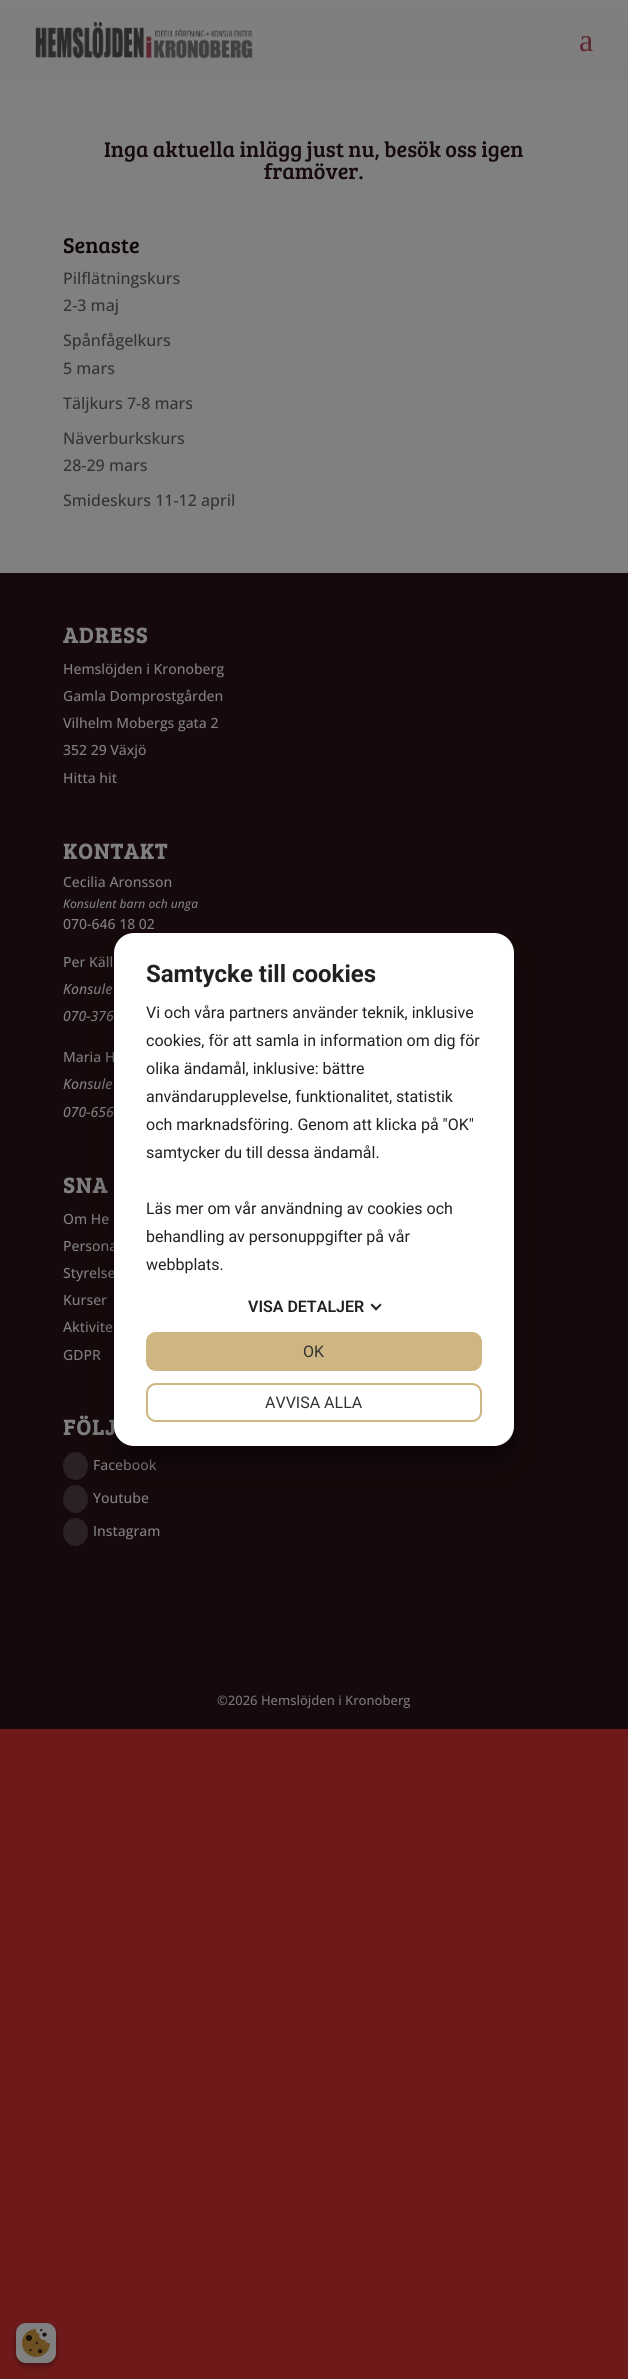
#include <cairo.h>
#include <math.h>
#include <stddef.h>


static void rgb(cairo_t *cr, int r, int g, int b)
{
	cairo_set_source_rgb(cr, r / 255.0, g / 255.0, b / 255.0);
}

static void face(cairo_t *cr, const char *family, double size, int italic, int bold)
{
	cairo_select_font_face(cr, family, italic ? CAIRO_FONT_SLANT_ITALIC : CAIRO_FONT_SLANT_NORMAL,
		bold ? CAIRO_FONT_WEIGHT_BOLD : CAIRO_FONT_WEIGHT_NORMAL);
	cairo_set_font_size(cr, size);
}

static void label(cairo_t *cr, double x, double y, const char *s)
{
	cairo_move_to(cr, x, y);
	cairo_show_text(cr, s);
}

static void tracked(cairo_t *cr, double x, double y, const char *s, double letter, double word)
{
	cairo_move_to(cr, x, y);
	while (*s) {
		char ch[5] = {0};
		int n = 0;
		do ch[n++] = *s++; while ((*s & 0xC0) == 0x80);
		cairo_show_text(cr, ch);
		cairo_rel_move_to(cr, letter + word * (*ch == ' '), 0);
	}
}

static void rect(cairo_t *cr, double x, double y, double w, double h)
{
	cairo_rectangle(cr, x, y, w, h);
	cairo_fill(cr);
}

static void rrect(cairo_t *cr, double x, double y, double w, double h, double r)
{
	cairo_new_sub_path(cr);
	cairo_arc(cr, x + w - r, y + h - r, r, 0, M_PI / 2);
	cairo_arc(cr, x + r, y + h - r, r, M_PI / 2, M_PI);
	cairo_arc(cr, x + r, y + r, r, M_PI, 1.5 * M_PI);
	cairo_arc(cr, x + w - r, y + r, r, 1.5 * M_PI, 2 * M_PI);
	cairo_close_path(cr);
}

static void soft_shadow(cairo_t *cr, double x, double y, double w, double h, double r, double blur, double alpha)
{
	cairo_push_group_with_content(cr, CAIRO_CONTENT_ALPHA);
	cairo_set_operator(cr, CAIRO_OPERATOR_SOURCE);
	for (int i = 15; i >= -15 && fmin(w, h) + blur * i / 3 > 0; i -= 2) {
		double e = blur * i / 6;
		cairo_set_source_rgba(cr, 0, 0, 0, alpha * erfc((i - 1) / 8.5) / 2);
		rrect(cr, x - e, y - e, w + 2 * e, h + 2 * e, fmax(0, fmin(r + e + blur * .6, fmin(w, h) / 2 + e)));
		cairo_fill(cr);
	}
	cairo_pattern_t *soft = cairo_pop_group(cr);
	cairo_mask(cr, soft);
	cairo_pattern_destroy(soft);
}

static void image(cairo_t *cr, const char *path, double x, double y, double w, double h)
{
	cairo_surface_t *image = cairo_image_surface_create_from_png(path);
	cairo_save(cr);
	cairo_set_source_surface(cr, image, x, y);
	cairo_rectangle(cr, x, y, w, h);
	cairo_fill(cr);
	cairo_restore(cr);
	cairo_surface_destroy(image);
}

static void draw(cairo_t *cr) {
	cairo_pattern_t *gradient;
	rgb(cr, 111, 26, 26);
	cairo_paint(cr);
	gradient = cairo_pattern_create_linear(314, 0, 314, 80);
	cairo_pattern_add_color_stop_rgba(gradient, 0, 0.502, 0.502, 0.502, 1);
	cairo_pattern_add_color_stop_rgba(gradient, 1, 0.502, 0.502, 0.502, 0.96);
	cairo_set_source(cr, gradient);
	cairo_pattern_destroy(gradient);
	rect(cr, 0, 0, 628, 79);
	image(cr, "image0.png", 35, 21, 218, 38);
	face(cr, "Liberation Serif", 32, 0, 0);
	rgb(cr, 93, 38, 47);
	label(cr, 579, 51, "a");
	rgb(cr, 128, 128, 128);
	rect(cr, 0, 79, 628, 494);
	face(cr, "Bree Serif", 22, 0, 0);
	rgb(cr, 22, 9, 11);
	label(cr, 104, 157, "Inga aktuella inlägg just nu, besök oss igen");
	label(cr, 264, 179, "framöver.");
	rgb(cr, 15, 6, 7);
	label(cr, 63, 253, "Senaste");
	face(cr, "Open Sans Medium", 16, 0, 0);
	rgb(cr, 51, 51, 51);
	label(cr, 63, 284, "Pilflätningskurs");
	label(cr, 63, 311, "2-3 maj");
	label(cr, 63, 346, "Spånfågelkurs");
	label(cr, 63, 374, "5 mars");
	label(cr, 63, 409, "Täljkurs 7-8 mars");
	label(cr, 63, 444, "Näverburkskurs");
	label(cr, 63, 471, "28-29 mars");
	label(cr, 63, 506, "Smideskurs 11-12 april");
	rgb(cr, 22, 9, 11);
	rect(cr, 0, 573, 628, 1156);
	face(cr, "Bree Serif", 22, 0, 1);
	rgb(cr, 128, 128, 128);
	tracked(cr, 63, 643, "ADRESS", 1.25, 0);
	face(cr, "Open Sans Medium", 14, 0, 0);
	label(cr, 63, 674, "Hemslöjden i Kronoberg");
	label(cr, 63, 701, "Gamla Domprostgården");
	label(cr, 63, 728, "Vilhelm Mobergs gata 2");
	label(cr, 63, 755, "352 29 Växjö");
	label(cr, 63, 783, "Hitta hit");
	face(cr, "Bree Serif", 22, 0, 1);
	tracked(cr, 63, 859, "KONTAKT", 1.25, 0);
	face(cr, "Open Sans Medium", 14, 0, 0);
	label(cr, 63, 887, "Cecilia Aronsson");
	face(cr, "Open Sans Medium", 12, 1, 0);
	label(cr, 63, 908, "Konsulent barn och unga");
	face(cr, "Open Sans Medium", 14, 0, 0);
	label(cr, 63, 929, "070-646 18 02");
	label(cr, 63, 967, "Per Käll");
	face(cr, "Open Sans Medium", 14, 1, 0);
	label(cr, 63, 994, "Konsule");
	label(cr, 63, 1021, "070-376");
	face(cr, "Open Sans Medium", 14, 0, 0);
	label(cr, 63, 1062, "Maria H");
	face(cr, "Open Sans Medium", 14, 1, 0);
	label(cr, 63, 1089, "Konsule");
	label(cr, 63, 1117, "070-656");
	face(cr, "Bree Serif", 22, 0, 1);
	tracked(cr, 63, 1193, "SNA", 1.25, 0);
	face(cr, "Open Sans Medium", 14, 0, 0);
	label(cr, 63, 1224, "Om He");
	label(cr, 63, 1251, "Persona");
	label(cr, 63, 1278, "Styrelse");
	label(cr, 63, 1305, "Kurser");
	label(cr, 63, 1332, "Aktivite");
	label(cr, 63, 1360, "GDPR");
	face(cr, "Bree Serif", 22, 0, 1);
	tracked(cr, 63, 1435, "FÖLJ", 1.25, 0);
	rgb(cr, 43, 33, 34);
	cairo_new_path(cr);
	cairo_move_to(cr, 75.5, 1452);
	cairo_curve_to(cr, 82.5, 1452, 88, 1458.5, 88, 1466);
	cairo_curve_to(cr, 88, 1473.5, 82.5, 1480, 75.5, 1480);
	cairo_curve_to(cr, 68.5, 1480, 63, 1473.5, 63, 1466);
	cairo_curve_to(cr, 63, 1458.5, 68.5, 1452, 75.5, 1452);
	cairo_close_path(cr);
	cairo_fill(cr);
	face(cr, "Open Sans Medium", 14, 0, 0);
	rgb(cr, 128, 128, 128);
	label(cr, 93, 1470, "Facebook");
	rgb(cr, 43, 33, 34);
	cairo_new_path(cr);
	cairo_move_to(cr, 75.5, 1485);
	cairo_curve_to(cr, 82.5, 1485, 88, 1491.5, 88, 1499);
	cairo_curve_to(cr, 88, 1506.5, 82.5, 1513, 75.5, 1513);
	cairo_curve_to(cr, 68.5, 1513, 63, 1506.5, 63, 1499);
	cairo_curve_to(cr, 63, 1491.5, 68.5, 1485, 75.5, 1485);
	cairo_close_path(cr);
	cairo_fill(cr);
	rgb(cr, 128, 128, 128);
	label(cr, 93, 1503, "Youtube");
	rgb(cr, 43, 33, 34);
	cairo_new_path(cr);
	cairo_move_to(cr, 75.5, 1518);
	cairo_curve_to(cr, 82.5, 1518, 88, 1524.5, 88, 1532);
	cairo_curve_to(cr, 88, 1539.5, 82.5, 1546, 75.5, 1546);
	cairo_curve_to(cr, 68.5, 1546, 63, 1539.5, 63, 1532);
	cairo_curve_to(cr, 63, 1524.5, 68.5, 1518, 75.5, 1518);
	cairo_close_path(cr);
	cairo_fill(cr);
	rgb(cr, 128, 128, 128);
	label(cr, 93, 1536, "Instagram");
	face(cr, "Open Sans Medium", 13, 0, 0);
	rgb(cr, 119, 118, 118);
	label(cr, 217, 1705, "©2026 Hemslöjden i Kronoberg");
	rgb(cr, 0, 0, 0);
	soft_shadow(cr, 114, 948, 400, 513, 20, 6, 0.22);
	soft_shadow(cr, 114, 952, 400, 513, 20, 19, 0.3);
	rgb(cr, 255, 255, 255);
	rrect(cr, 114, 933, 400, 513, 20);
	cairo_fill(cr);
	face(cr, "Roboto", 24, 0, 1);
	rgb(cr, 33, 33, 33);
	label(cr, 146, 982, "Samtycke till cookies");
	face(cr, "Roboto", 16, 0, 0);
	label(cr, 146, 1018, "Vi och våra partners använder teknik, inklusive");
	label(cr, 146, 1046, "cookies, för att samla in information om dig för");
	label(cr, 146, 1074, "olika ändamål, inklusive: bättre");
	label(cr, 146, 1102, "användarupplevelse, funktionalitet, statistik");
	label(cr, 146, 1130, "och marknadsföring. Genom att klicka på \"OK\"");
	label(cr, 146, 1158, "samtycker du till dessa ändamål.");
	label(cr, 146, 1214, "Läs mer om vår användning av cookies och");
	label(cr, 146, 1242, "behandling av personuppgifter på vår");
	label(cr, 146, 1270, "webbplats.");
	face(cr, "Roboto SemiBold", 16, 0, 0);
	label(cr, 248, 1312, "VISA DETALJER");
	cairo_new_path(cr);
	cairo_move_to(cr, 380.5, 1303.5);
	cairo_line_to(cr, 381.5, 1305);
	cairo_line_to(cr, 376, 1310.5);
	cairo_line_to(cr, 374.5, 1309);
	cairo_close_path(cr);
	cairo_fill(cr);
	cairo_new_path(cr);
	cairo_move_to(cr, 372, 1303.5);
	cairo_line_to(cr, 377.5, 1309);
	cairo_line_to(cr, 376, 1310.5);
	cairo_line_to(cr, 370.5, 1305);
	cairo_close_path(cr);
	cairo_fill(cr);
	rgb(cr, 206, 181, 130);
	rrect(cr, 147, 1333, 334, 37, 9);
	cairo_fill_preserve(cr);
	cairo_stroke(cr);
	face(cr, "Roboto", 16, 0, 0);
	rgb(cr, 51, 51, 51);
	label(cr, 303, 1357, "OK");
	rrect(cr, 147, 1384, 334, 37, 9);
	rgb(cr, 206, 181, 130);
	cairo_stroke(cr);
	rgb(cr, 51, 51, 51);
	label(cr, 265, 1408, "AVVISA ALLA");
	rgb(cr, 0, 0, 0);
	soft_shadow(cr, 16, 2326, 40, 40, 10, 3, 0.23);
	soft_shadow(cr, 16, 2326, 40, 40, 10, 3, 0.16);
	rgb(cr, 128, 128, 128);
	rrect(cr, 16, 2323, 40, 40, 10);
	cairo_fill(cr);
	image(cr, "image1.png", 22, 2329, 28, 28);
}

int main(void) {
	cairo_surface_t *surface = cairo_image_surface_create(CAIRO_FORMAT_RGB24, 628, 2379);
	cairo_t *cr = cairo_create(surface);
	cairo_font_options_t *options = cairo_font_options_create();
	cairo_font_options_set_hint_metrics(options, CAIRO_HINT_METRICS_OFF);
	cairo_font_options_set_hint_style(options, CAIRO_HINT_STYLE_NONE);
	cairo_set_font_options(cr, options);
	cairo_set_miter_limit(cr, 4);
	draw(cr);
	cairo_surface_write_to_png(surface, "render.png");
	cairo_font_options_destroy(options);
	cairo_destroy(cr);
	cairo_surface_destroy(surface);
	return 0;
}
